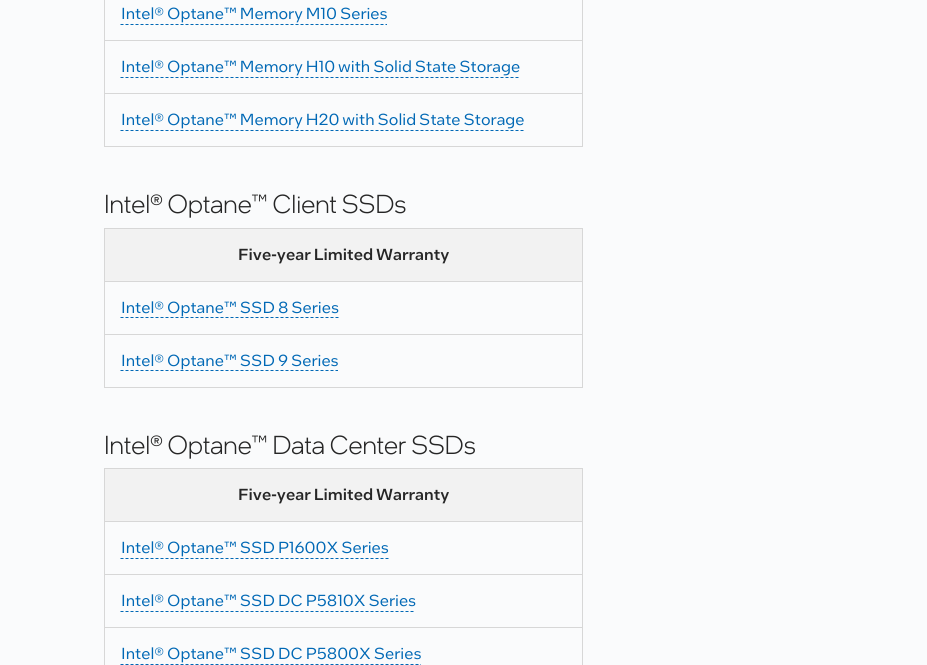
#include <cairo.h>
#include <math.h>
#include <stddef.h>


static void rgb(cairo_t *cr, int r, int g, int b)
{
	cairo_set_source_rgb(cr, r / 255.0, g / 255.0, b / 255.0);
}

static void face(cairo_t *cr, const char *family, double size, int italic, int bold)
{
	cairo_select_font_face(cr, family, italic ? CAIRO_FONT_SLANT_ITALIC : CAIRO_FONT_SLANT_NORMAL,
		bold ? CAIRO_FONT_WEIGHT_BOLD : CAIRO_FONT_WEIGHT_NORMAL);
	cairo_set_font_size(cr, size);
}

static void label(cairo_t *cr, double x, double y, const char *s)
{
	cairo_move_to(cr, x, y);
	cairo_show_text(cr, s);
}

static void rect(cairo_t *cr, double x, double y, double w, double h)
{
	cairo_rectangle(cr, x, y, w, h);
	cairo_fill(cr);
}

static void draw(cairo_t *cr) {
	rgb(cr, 250, 251, 252);
	cairo_paint(cr);
	face(cr, "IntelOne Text", 16, 0, 0);
	rgb(cr, 0, 104, 181);
	label(cr, 121, 19, "Intel® Optane™ Memory M10 Series");
	cairo_new_path(cr);
	cairo_move_to(cr, 120.5, 24.5);
	cairo_line_to(cr, 387, 24.5);
	cairo_set_line_width(cr, 1);
	cairo_set_dash(cr, (double[]){3, 2}, 2, 0);
	cairo_stroke(cr);
	rgb(cr, 215, 215, 215);
	rect(cr, 104, 40, 479, 1);
	rect(cr, 104, 93, 479, 1);
	rect(cr, 582, 93, 1, 54);
	rect(cr, 582, 0, 1, 94);
	rect(cr, 104, 146, 479, 1);
	rect(cr, 104, 93, 1, 54);
	rect(cr, 104, 0, 1, 94);
	rgb(cr, 0, 104, 181);
	label(cr, 121, 72, "Intel® Optane™ Memory H10 with Solid State Storage");
	cairo_new_path(cr);
	cairo_move_to(cr, 120.5, 77.5);
	cairo_line_to(cr, 519.5, 77.5);
	cairo_stroke(cr);
	label(cr, 121, 125, "Intel® Optane™ Memory H20 with Solid State Storage");
	cairo_new_path(cr);
	cairo_move_to(cr, 120.5, 130.5);
	cairo_line_to(cr, 524, 130.5);
	cairo_stroke(cr);
	face(cr, "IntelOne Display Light", 26, 0, 0);
	rgb(cr, 38, 38, 38);
	label(cr, 104, 213, "Intel® Optane™ Client SSDs");
	rgb(cr, 242, 242, 242);
	rect(cr, 105, 229, 477, 52);
	rgb(cr, 215, 215, 215);
	rect(cr, 104, 228, 479, 1);
	rect(cr, 104, 281, 479, 1);
	rect(cr, 104, 334, 479, 1);
	rect(cr, 582, 334, 1, 54);
	rect(cr, 582, 281, 1, 54);
	rect(cr, 582, 228, 1, 54);
	rect(cr, 104, 387, 479, 1);
	rect(cr, 104, 334, 1, 54);
	rect(cr, 104, 281, 1, 54);
	rect(cr, 104, 228, 1, 54);
	face(cr, "IntelOne Text Medium", 16, 0, 0);
	rgb(cr, 38, 38, 38);
	label(cr, 238, 260, "Five-year Limited Warranty");
	face(cr, "IntelOne Text", 16, 0, 0);
	rgb(cr, 0, 104, 181);
	label(cr, 121, 313, "Intel® Optane™ SSD 8 Series");
	cairo_new_path(cr);
	cairo_move_to(cr, 120.5, 317.5);
	cairo_line_to(cr, 338.5, 317.5);
	cairo_stroke(cr);
	label(cr, 121, 366, "Intel® Optane™ SSD 9 Series");
	cairo_new_path(cr);
	cairo_move_to(cr, 120.5, 370.5);
	cairo_line_to(cr, 338, 370.5);
	cairo_stroke(cr);
	face(cr, "IntelOne Display Light", 26, 0, 0);
	rgb(cr, 38, 38, 38);
	label(cr, 104, 454, "Intel® Optane™ Data Center SSDs");
	rgb(cr, 242, 242, 242);
	rect(cr, 105, 469, 477, 52);
	rgb(cr, 215, 215, 215);
	rect(cr, 104, 468, 479, 1);
	rect(cr, 104, 521, 479, 1);
	rect(cr, 104, 574, 479, 1);
	rect(cr, 104, 627, 479, 1);
	rect(cr, 582, 627, 1, 38);
	rect(cr, 582, 574, 1, 54);
	rect(cr, 582, 521, 1, 54);
	rect(cr, 582, 468, 1, 54);
	rect(cr, 104, 627, 1, 38);
	rect(cr, 104, 574, 1, 54);
	rect(cr, 104, 521, 1, 54);
	rect(cr, 104, 468, 1, 54);
	face(cr, "IntelOne Text Medium", 16, 0, 0);
	rgb(cr, 38, 38, 38);
	label(cr, 238, 500, "Five-year Limited Warranty");
	face(cr, "IntelOne Text", 16, 0, 0);
	rgb(cr, 0, 104, 181);
	label(cr, 121, 553, "Intel® Optane™ SSD P1600X Series");
	cairo_new_path(cr);
	cairo_move_to(cr, 120.5, 558.5);
	cairo_line_to(cr, 388.5, 558.5);
	cairo_stroke(cr);
	label(cr, 121, 606, "Intel® Optane™ SSD DC P5810X Series");
	cairo_new_path(cr);
	cairo_move_to(cr, 120.5, 611.5);
	cairo_line_to(cr, 415.5, 611.5);
	cairo_stroke(cr);
	label(cr, 121, 659, "Intel® Optane™ SSD DC P5800X Series");
	cairo_new_path(cr);
	cairo_move_to(cr, 120.5, 664.5);
	cairo_line_to(cr, 421, 664.5);
	cairo_stroke(cr);
}

int main(void) {
	cairo_surface_t *surface = cairo_image_surface_create(CAIRO_FORMAT_RGB24, 927, 665);
	cairo_t *cr = cairo_create(surface);
	cairo_font_options_t *options = cairo_font_options_create();
	cairo_font_options_set_hint_metrics(options, CAIRO_HINT_METRICS_OFF);
	cairo_font_options_set_hint_style(options, CAIRO_HINT_STYLE_NONE);
	cairo_set_font_options(cr, options);
	cairo_set_miter_limit(cr, 4);
	draw(cr);
	cairo_surface_write_to_png(surface, "render.png");
	cairo_font_options_destroy(options);
	cairo_destroy(cr);
	cairo_surface_destroy(surface);
	return 0;
}
